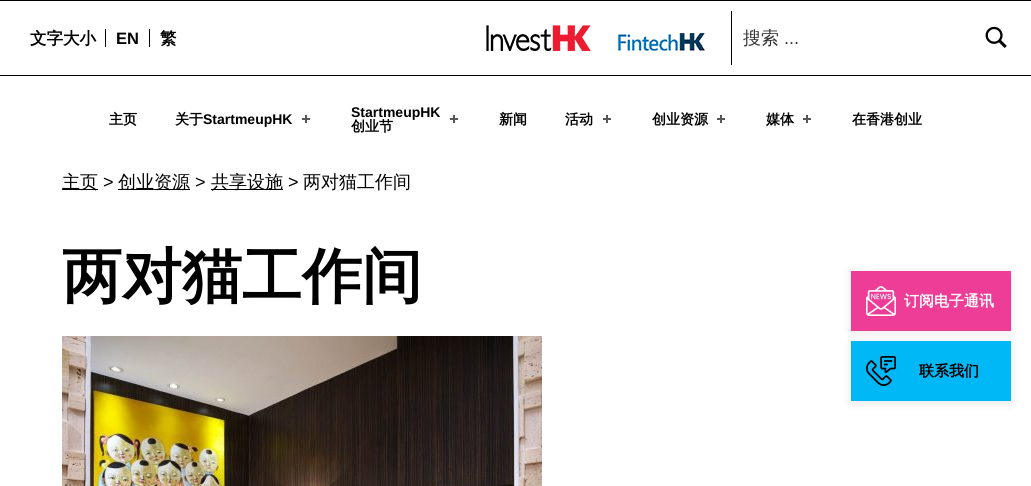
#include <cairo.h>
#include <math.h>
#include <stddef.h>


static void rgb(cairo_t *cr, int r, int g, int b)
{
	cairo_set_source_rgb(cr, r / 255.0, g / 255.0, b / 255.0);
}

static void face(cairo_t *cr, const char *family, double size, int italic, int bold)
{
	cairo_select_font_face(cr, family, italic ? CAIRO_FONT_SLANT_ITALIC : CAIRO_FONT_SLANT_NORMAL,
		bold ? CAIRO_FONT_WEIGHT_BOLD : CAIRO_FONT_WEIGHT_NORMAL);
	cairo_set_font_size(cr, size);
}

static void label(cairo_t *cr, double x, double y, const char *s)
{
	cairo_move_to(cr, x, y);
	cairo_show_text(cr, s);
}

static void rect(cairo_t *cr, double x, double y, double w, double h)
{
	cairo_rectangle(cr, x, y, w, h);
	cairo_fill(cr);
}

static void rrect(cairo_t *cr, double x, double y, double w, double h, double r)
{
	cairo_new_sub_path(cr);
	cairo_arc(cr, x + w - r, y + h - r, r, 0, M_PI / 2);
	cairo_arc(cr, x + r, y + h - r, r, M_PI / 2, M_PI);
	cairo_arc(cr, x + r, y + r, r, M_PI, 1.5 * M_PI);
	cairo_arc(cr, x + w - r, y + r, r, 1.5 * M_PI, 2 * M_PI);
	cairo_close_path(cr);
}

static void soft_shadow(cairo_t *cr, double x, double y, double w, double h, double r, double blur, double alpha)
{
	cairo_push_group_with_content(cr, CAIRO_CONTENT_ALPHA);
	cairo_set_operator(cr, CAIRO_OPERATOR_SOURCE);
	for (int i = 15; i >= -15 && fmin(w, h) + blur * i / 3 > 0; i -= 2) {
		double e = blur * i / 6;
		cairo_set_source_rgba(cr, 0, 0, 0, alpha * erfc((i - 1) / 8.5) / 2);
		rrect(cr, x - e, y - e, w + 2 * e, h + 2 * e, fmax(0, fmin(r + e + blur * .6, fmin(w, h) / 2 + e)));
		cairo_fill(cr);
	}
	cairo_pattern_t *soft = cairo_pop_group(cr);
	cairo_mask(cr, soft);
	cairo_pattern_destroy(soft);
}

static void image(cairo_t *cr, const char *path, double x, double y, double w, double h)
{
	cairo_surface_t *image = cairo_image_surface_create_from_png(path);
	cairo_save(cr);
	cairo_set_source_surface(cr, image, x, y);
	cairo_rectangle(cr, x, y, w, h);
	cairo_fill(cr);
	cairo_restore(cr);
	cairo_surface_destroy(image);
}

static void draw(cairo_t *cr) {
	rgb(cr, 255, 255, 255);
	cairo_paint(cr);
	rgb(cr, 0, 0, 0);
	rect(cr, 0, 0, 1031, 1);
	rect(cr, 0, 75, 1031, 1);
	face(cr, "WenQuanYi Zen Hei", 16.5, 0, 1);
	label(cr, 30, 44, "文字大小");
	face(cr, "Liberation Sans", 16.5, 0, 1);
	label(cr, 116, 44, "EN");
	rect(cr, 105, 29, 1, 18);
	face(cr, "WenQuanYi Zen Hei", 16.5, 0, 1);
	label(cr, 160, 44, "繁");
	rect(cr, 149, 29, 1, 18);
	image(cr, "image0.png", 486, 25, 105, 26);
	image(cr, "image1.png", 618, 33, 87, 18);
	rect(cr, 731, 11, 1, 54);
	face(cr, "WenQuanYi Zen Hei Medium", 18, 0, 0);
	rgb(cr, 51, 51, 51);
	label(cr, 743, 44, "搜索");
	face(cr, "Liberation Sans", 18, 0, 0);
	label(cr, 784, 44, "...");
	image(cr, "image2.png", 985, 26, 22, 22);
	face(cr, "WenQuanYi Zen Hei", 14, 0, 1);
	rgb(cr, 0, 0, 0);
	label(cr, 109, 124, "主页");
	label(cr, 175, 124, "关于");
	face(cr, "Liberation Sans", 14, 0, 1);
	label(cr, 203, 124, "StartmeupHK");
	rgb(cr, 87, 87, 87);
	rect(cr, 302, 118, 8, 2);
	rect(cr, 305, 115, 2, 8);
	rgb(cr, 0, 0, 0);
	label(cr, 351, 117, "StartmeupHK");
	rgb(cr, 87, 87, 87);
	rect(cr, 450, 118, 8, 2);
	rect(cr, 453, 115, 2, 8);
	face(cr, "WenQuanYi Zen Hei", 14, 0, 1);
	rgb(cr, 0, 0, 0);
	label(cr, 351, 131, "创业节");
	label(cr, 499, 124, "新闻");
	label(cr, 565, 124, "活动");
	rgb(cr, 87, 87, 87);
	rect(cr, 603, 118, 8, 2);
	rect(cr, 606, 115, 2, 8);
	rgb(cr, 0, 0, 0);
	label(cr, 652, 124, "创业资源");
	rgb(cr, 87, 87, 87);
	rect(cr, 717, 118, 8, 2);
	rect(cr, 720, 115, 2, 8);
	rgb(cr, 0, 0, 0);
	label(cr, 766, 124, "媒体");
	rgb(cr, 87, 87, 87);
	rect(cr, 803, 118, 8, 2);
	rect(cr, 806, 115, 2, 8);
	rgb(cr, 0, 0, 0);
	label(cr, 852, 124, "在香港创业");
	rect(cr, 62, 189, 36, 1);
	face(cr, "WenQuanYi Zen Hei Medium", 18, 0, 0);
	label(cr, 62, 188, "主页");
	face(cr, "Liberation Sans", 18, 0, 0);
	label(cr, 103, 188, ">");
	rect(cr, 118, 189, 72, 1);
	face(cr, "WenQuanYi Zen Hei Medium", 18, 0, 0);
	label(cr, 118, 188, "创业资源");
	face(cr, "Liberation Sans", 18, 0, 0);
	label(cr, 195, 188, ">");
	rect(cr, 211, 189, 72, 1);
	face(cr, "WenQuanYi Zen Hei Medium", 18, 0, 0);
	label(cr, 211, 188, "共享设施");
	face(cr, "Liberation Sans", 18, 0, 0);
	label(cr, 288, 188, ">");
	face(cr, "WenQuanYi Zen Hei Medium", 18, 0, 0);
	label(cr, 303, 188, "两对猫工作间");
	face(cr, "WenQuanYi Zen Hei", 60, 0, 1);
	label(cr, 62, 297, "两对猫工作间");
	image(cr, "image3.png", 62, 336, 480, 150);
	rgb(cr, 0, 0, 0);
	soft_shadow(cr, 851, 273, 160, 60, 0, 5, 0.1);
	rgb(cr, 238, 61, 150);
	rect(cr, 851, 271, 160, 60);
	image(cr, "image4.png", 866, 286, 30, 30);
	face(cr, "WenQuanYi Zen Hei", 15, 0, 1);
	rgb(cr, 255, 255, 255);
	label(cr, 904, 306, "订阅电子通讯");
	rgb(cr, 0, 0, 0);
	soft_shadow(cr, 851, 343, 160, 60, 0, 5, 0.1);
	rgb(cr, 0, 184, 246);
	rect(cr, 851, 341, 160, 60);
	image(cr, "image5.png", 866, 356, 30, 30);
	rgb(cr, 0, 0, 0);
	label(cr, 919, 376, "联系我们");
}

int main(void) {
	cairo_surface_t *surface = cairo_image_surface_create(CAIRO_FORMAT_RGB24, 1031, 486);
	cairo_t *cr = cairo_create(surface);
	cairo_font_options_t *options = cairo_font_options_create();
	cairo_font_options_set_hint_metrics(options, CAIRO_HINT_METRICS_OFF);
	cairo_font_options_set_hint_style(options, CAIRO_HINT_STYLE_NONE);
	cairo_set_font_options(cr, options);
	cairo_set_miter_limit(cr, 4);
	draw(cr);
	cairo_surface_write_to_png(surface, "render.png");
	cairo_font_options_destroy(options);
	cairo_destroy(cr);
	cairo_surface_destroy(surface);
	return 0;
}
